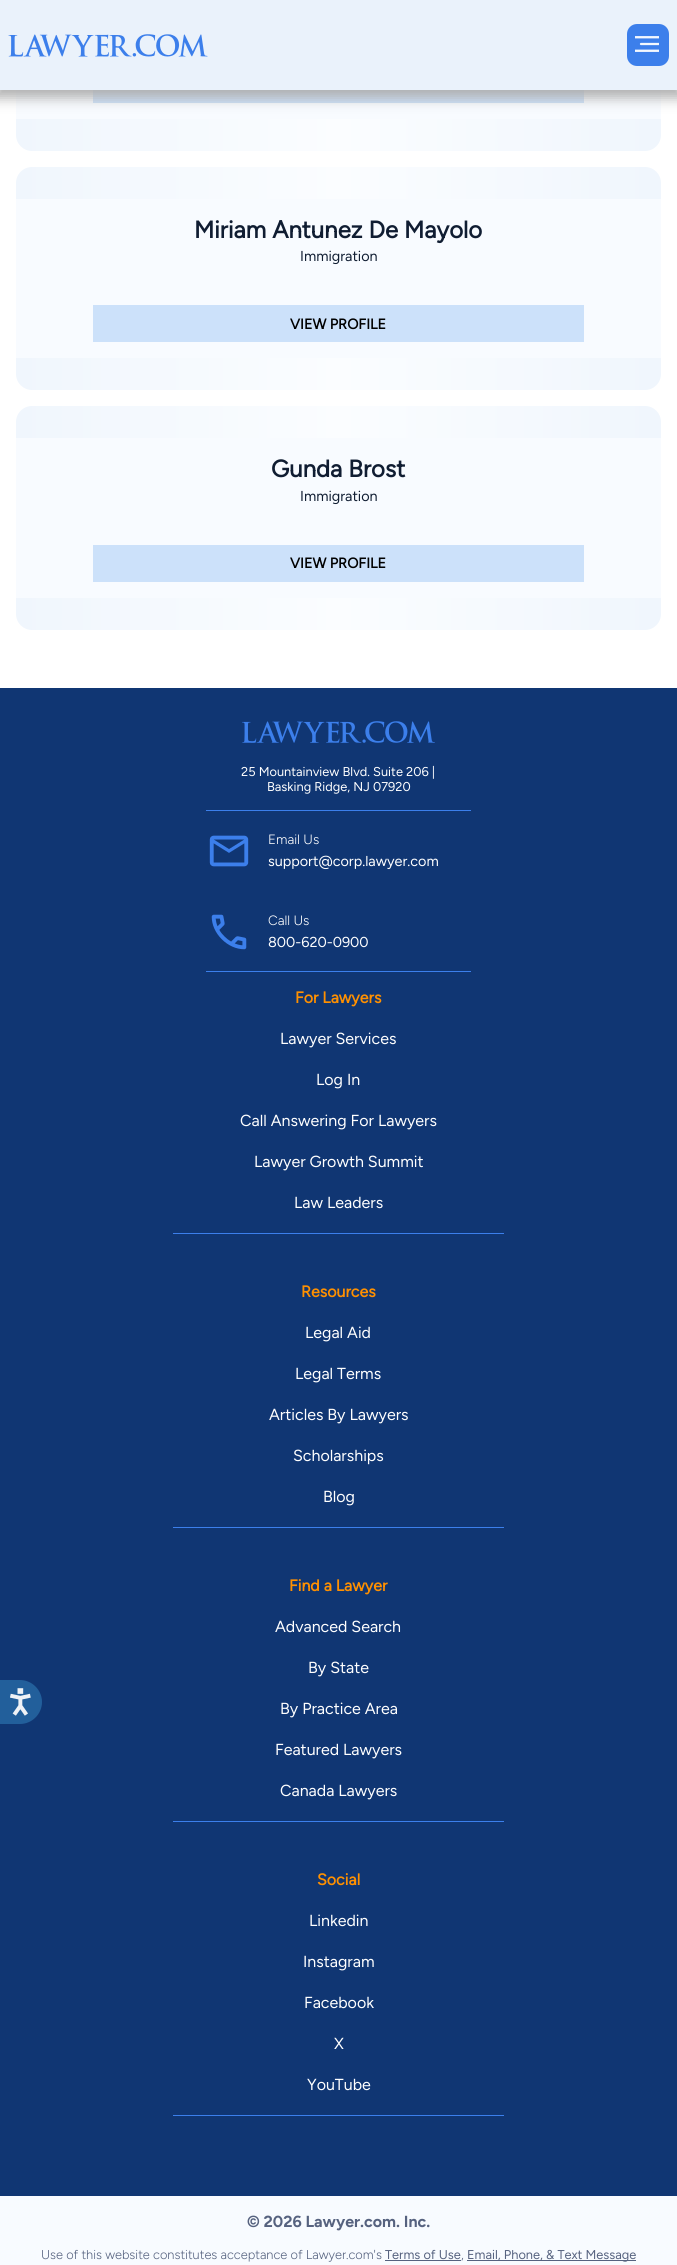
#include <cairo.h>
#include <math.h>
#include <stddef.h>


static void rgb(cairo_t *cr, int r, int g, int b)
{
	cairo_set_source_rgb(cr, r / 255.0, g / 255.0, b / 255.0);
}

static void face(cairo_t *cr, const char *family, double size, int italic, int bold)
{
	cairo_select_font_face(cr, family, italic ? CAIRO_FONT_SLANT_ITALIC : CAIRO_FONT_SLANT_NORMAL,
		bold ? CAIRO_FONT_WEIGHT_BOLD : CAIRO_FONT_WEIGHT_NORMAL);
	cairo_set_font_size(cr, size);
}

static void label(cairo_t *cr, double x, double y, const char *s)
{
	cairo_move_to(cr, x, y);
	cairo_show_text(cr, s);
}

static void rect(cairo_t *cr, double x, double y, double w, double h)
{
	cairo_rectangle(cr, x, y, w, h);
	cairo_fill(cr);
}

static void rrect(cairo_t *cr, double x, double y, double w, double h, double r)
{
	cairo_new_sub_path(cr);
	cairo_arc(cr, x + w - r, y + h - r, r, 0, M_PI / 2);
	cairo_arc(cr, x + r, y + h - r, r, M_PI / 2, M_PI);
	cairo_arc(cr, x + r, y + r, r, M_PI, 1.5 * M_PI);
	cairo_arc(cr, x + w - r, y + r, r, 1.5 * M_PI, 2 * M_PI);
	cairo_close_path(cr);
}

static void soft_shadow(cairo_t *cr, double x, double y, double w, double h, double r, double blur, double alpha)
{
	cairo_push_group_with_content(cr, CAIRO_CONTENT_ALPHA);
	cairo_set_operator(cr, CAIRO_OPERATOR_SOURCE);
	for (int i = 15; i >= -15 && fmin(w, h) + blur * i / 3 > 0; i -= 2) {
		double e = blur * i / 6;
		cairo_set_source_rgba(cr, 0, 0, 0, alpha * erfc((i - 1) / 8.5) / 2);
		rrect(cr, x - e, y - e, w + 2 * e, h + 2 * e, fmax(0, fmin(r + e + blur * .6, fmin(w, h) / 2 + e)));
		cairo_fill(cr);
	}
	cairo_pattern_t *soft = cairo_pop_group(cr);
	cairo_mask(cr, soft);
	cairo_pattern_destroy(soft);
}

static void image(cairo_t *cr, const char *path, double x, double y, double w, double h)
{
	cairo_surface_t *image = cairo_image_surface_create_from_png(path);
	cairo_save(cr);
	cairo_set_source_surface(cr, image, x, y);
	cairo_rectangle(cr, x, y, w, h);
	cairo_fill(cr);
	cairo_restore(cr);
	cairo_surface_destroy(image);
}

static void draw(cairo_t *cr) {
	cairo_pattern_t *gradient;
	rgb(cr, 255, 255, 255);
	cairo_paint(cr);
	rgb(cr, 16, 54, 115);
	rect(cr, 0, 688, 677, 1508);
	rgb(cr, 34, 95, 155);
	cairo_new_path(cr);
	cairo_move_to(cr, 0, 1680);
	cairo_line_to(cr, 20, 1680);
	cairo_curve_to(cr, 32, 1680, 42, 1690, 42, 1702);
	cairo_curve_to(cr, 42, 1714, 32, 1724, 20, 1724);
	cairo_line_to(cr, 0, 1724);
	cairo_close_path(cr);
	cairo_fill(cr);
	image(cr, "image0.png", 10, 1688, 21, 28);
	gradient = cairo_pattern_create_linear(16, 40, 661, 39);
	cairo_pattern_add_color_stop_rgba(gradient, 0, 0.941, 0.965, 0.992, 1);
	cairo_pattern_add_color_stop_rgba(gradient, 0.5, 0.984, 0.992, 1, 1);
	cairo_pattern_add_color_stop_rgba(gradient, 0.99, 0.941, 0.965, 0.992, 1);
	cairo_set_source(cr, gradient);
	cairo_pattern_destroy(gradient);
	rrect(cr, 16, -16, 645, 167, 16);
	cairo_fill(cr);
	rgb(cr, 248, 251, 255);
	rect(cr, 16, 90, 645, 29);
	rgb(cr, 204, 225, 250);
	rect(cr, 93, 90, 491, 13);
	rgb(cr, 176, 176, 176);
	soft_shadow(cr, -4, 0, 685, 98, 0, 6.5, 1);
	rgb(cr, 234, 242, 251);
	rect(cr, 0, 0, 677, 90);
	image(cr, "image1.png", 8, 34, 200, 23);
	rgb(cr, 60, 127, 235);
	rrect(cr, 627, 24, 42, 42, 10);
	cairo_fill(cr);
	image(cr, "image2.png", 635, 36, 24, 16);
	gradient = cairo_pattern_create_linear(16, 279, 661, 279);
	cairo_pattern_add_color_stop_rgba(gradient, 0, 0.941, 0.965, 0.992, 1);
	cairo_pattern_add_color_stop_rgba(gradient, 0.5, 0.984, 0.992, 1, 1);
	cairo_pattern_add_color_stop_rgba(gradient, 0.99, 0.941, 0.965, 0.992, 1);
	cairo_set_source(cr, gradient);
	cairo_pattern_destroy(gradient);
	rrect(cr, 16, 167, 645, 223, 16);
	cairo_fill(cr);
	rgb(cr, 248, 251, 255);
	rect(cr, 16, 199, 645, 159);
	face(cr, "Figtree", 24, 0, 1);
	rgb(cr, 16, 29, 50);
	label(cr, 194, 238, "Miriam Antunez De Mayolo");
	face(cr, "Figtree", 14.4, 0, 0);
	label(cr, 300, 261, "Immigration");
	rgb(cr, 204, 225, 250);
	rect(cr, 93, 305, 491, 37);
	face(cr, "Figtree", 14.4, 0, 1);
	rgb(cr, 0, 0, 0);
	label(cr, 290, 329, "VIEW PROFILE");
	gradient = cairo_pattern_create_linear(16, 518, 661, 518);
	cairo_pattern_add_color_stop_rgba(gradient, 0, 0.941, 0.965, 0.992, 1);
	cairo_pattern_add_color_stop_rgba(gradient, 0.5, 0.984, 0.992, 1, 1);
	cairo_pattern_add_color_stop_rgba(gradient, 0.99, 0.941, 0.965, 0.992, 1);
	cairo_set_source(cr, gradient);
	cairo_pattern_destroy(gradient);
	rrect(cr, 16, 406, 645, 224, 16);
	cairo_fill(cr);
	rgb(cr, 248, 251, 255);
	rect(cr, 16, 438, 645, 160);
	face(cr, "Figtree", 24, 0, 1);
	rgb(cr, 16, 29, 50);
	label(cr, 271, 477, "Gunda Brost");
	face(cr, "Figtree", 14.4, 0, 0);
	label(cr, 300, 501, "Immigration");
	rgb(cr, 204, 225, 250);
	rect(cr, 93, 545, 491, 37);
	face(cr, "Figtree", 14.4, 0, 1);
	rgb(cr, 0, 0, 0);
	label(cr, 290, 568, "VIEW PROFILE");
	image(cr, "image3.png", 242, 721, 193, 22);
	face(cr, "Figtree", 12.8, 0, 0);
	rgb(cr, 255, 255, 255);
	label(cr, 241, 776, "25 Mountainview Blvd. Suite 206 |");
	label(cr, 267, 791, "Basking Ridge, NJ 07920");
	rgb(cr, 60, 127, 235);
	rect(cr, 206, 810, 265, 1);
	image(cr, "image4.png", 209, 835, 40, 32);
	face(cr, "Figtree Light", 13.5, 0, 0);
	rgb(cr, 255, 255, 255);
	label(cr, 268, 844, "Email Us");
	face(cr, "Figtree", 14.4, 0, 0);
	label(cr, 268, 866, "support@corp.lawyer.com");
	image(cr, "image5.png", 211, 914, 36, 36);
	face(cr, "Figtree Light", 13.5, 0, 0);
	label(cr, 268, 925, "Call Us");
	face(cr, "Figtree", 14.4, 0, 0);
	label(cr, 268, 947, "800-620-0900");
	rgb(cr, 60, 127, 235);
	rect(cr, 206, 971, 265, 1);
	face(cr, "Figtree", 16, 0, 1);
	rgb(cr, 255, 144, 0);
	label(cr, 295, 1003, "For Lawyers");
	face(cr, "Figtree", 16, 0, 0);
	rgb(cr, 255, 255, 255);
	label(cr, 280, 1044, "Lawyer Services");
	label(cr, 316, 1085, "Log In");
	label(cr, 240, 1126, "Call Answering For Lawyers");
	label(cr, 254, 1167, "Lawyer Growth Summit");
	label(cr, 294, 1208, "Law Leaders");
	rgb(cr, 60, 127, 235);
	rect(cr, 173, 1233, 331, 1);
	face(cr, "Figtree", 16, 0, 1);
	rgb(cr, 255, 144, 0);
	label(cr, 301, 1297, "Resources");
	face(cr, "Figtree", 16, 0, 0);
	rgb(cr, 255, 255, 255);
	label(cr, 305, 1338, "Legal Aid");
	label(cr, 295, 1379, "Legal Terms");
	label(cr, 269, 1420, "Articles By Lawyers");
	label(cr, 293, 1461, "Scholarships");
	label(cr, 323, 1502, "Blog");
	rgb(cr, 60, 127, 235);
	rect(cr, 173, 1527, 331, 1);
	face(cr, "Figtree", 16, 0, 1);
	rgb(cr, 255, 144, 0);
	label(cr, 289, 1591, "Find a Lawyer");
	face(cr, "Figtree", 16, 0, 0);
	rgb(cr, 255, 255, 255);
	label(cr, 275, 1632, "Advanced Search");
	label(cr, 308, 1673, "By State");
	label(cr, 280, 1714, "By Practice Area");
	label(cr, 275, 1755, "Featured Lawyers");
	label(cr, 280, 1796, "Canada Lawyers");
	rgb(cr, 60, 127, 235);
	rect(cr, 173, 1821, 331, 1);
	face(cr, "Figtree", 16, 0, 1);
	rgb(cr, 255, 144, 0);
	label(cr, 317, 1885, "Social");
	face(cr, "Figtree", 16, 0, 0);
	rgb(cr, 255, 255, 255);
	label(cr, 309, 1926, "Linkedin");
	label(cr, 303, 1967, "Instagram");
	label(cr, 304, 2008, "Facebook");
	label(cr, 334, 2049, "X");
	label(cr, 307, 2090, "YouTube");
	rgb(cr, 60, 127, 235);
	rect(cr, 173, 2115, 331, 1);
	rgb(cr, 248, 251, 255);
	rect(cr, 0, 2196, 677, 69);
	face(cr, "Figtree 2", 16, 0, 1);
	rgb(cr, 86, 98, 127);
	label(cr, 247, 2227, "© 2026 Lawyer.com. Inc.");
	face(cr, "Figtree Light", 12.8, 0, 0);
	label(cr, 41, 2259, "Use of this website constitutes acceptance of Lawyer.com's");
	face(cr, "Figtree", 12.8, 0, 0);
	label(cr, 385, 2259, "Terms of Use");
	rect(cr, 385, 2260, 76, 1);
	face(cr, "Figtree Light", 12.8, 0, 0);
	label(cr, 461, 2259, ",");
	rect(cr, 467, 2260, 169, 1);
	face(cr, "Figtree", 12.8, 0, 0);
	label(cr, 467, 2259, "Email, Phone, & Text Message");
}

int main(void) {
	cairo_surface_t *surface = cairo_image_surface_create(CAIRO_FORMAT_RGB24, 677, 2265);
	cairo_t *cr = cairo_create(surface);
	cairo_font_options_t *options = cairo_font_options_create();
	cairo_font_options_set_hint_metrics(options, CAIRO_HINT_METRICS_OFF);
	cairo_font_options_set_hint_style(options, CAIRO_HINT_STYLE_NONE);
	cairo_set_font_options(cr, options);
	cairo_set_miter_limit(cr, 4);
	draw(cr);
	cairo_surface_write_to_png(surface, "render.png");
	cairo_font_options_destroy(options);
	cairo_destroy(cr);
	cairo_surface_destroy(surface);
	return 0;
}
